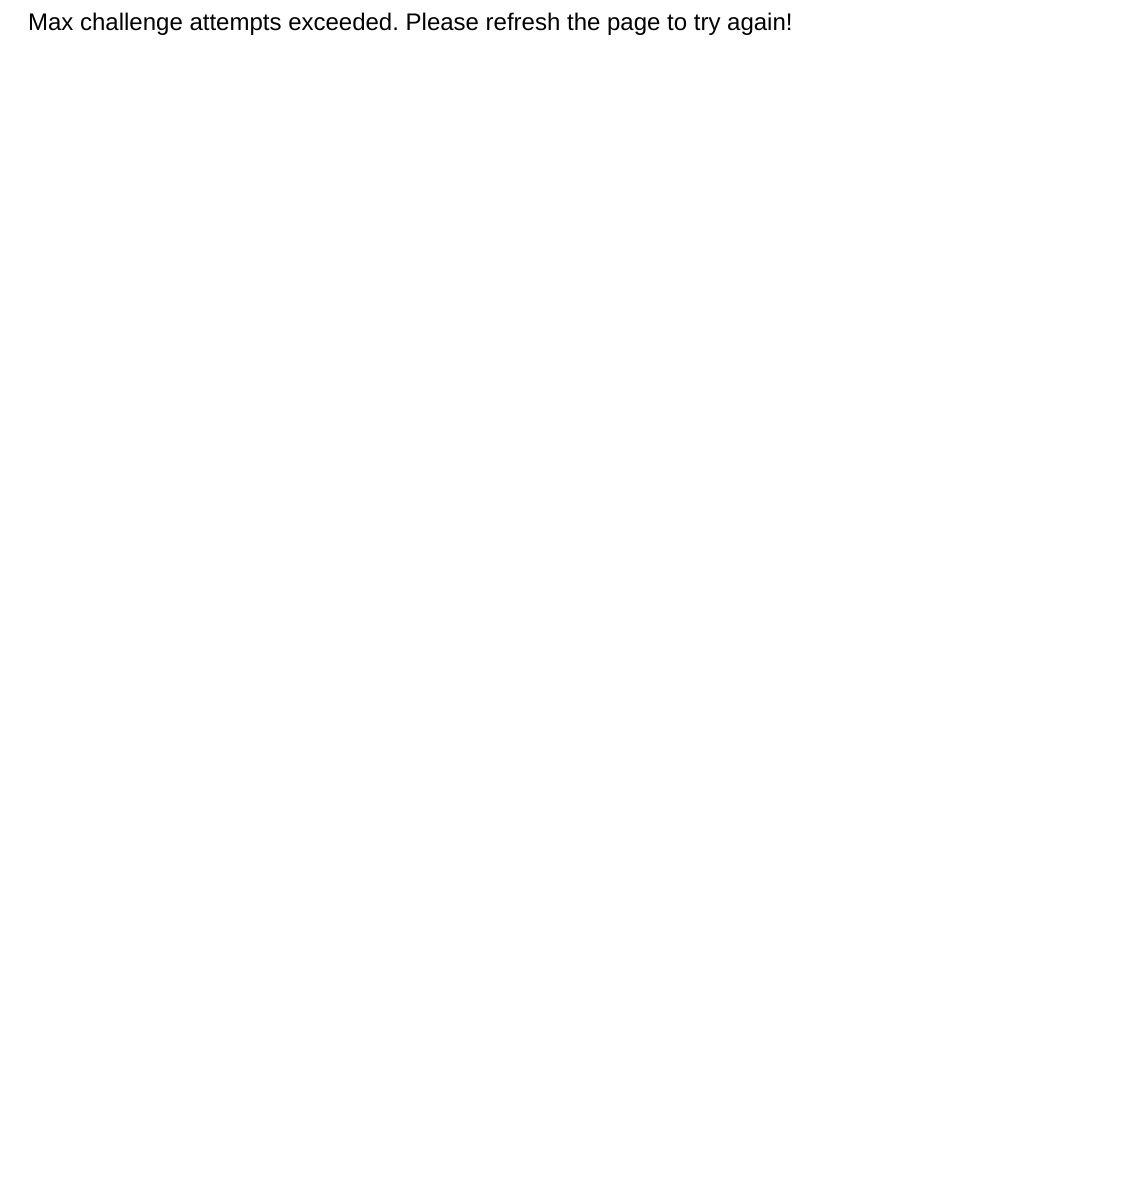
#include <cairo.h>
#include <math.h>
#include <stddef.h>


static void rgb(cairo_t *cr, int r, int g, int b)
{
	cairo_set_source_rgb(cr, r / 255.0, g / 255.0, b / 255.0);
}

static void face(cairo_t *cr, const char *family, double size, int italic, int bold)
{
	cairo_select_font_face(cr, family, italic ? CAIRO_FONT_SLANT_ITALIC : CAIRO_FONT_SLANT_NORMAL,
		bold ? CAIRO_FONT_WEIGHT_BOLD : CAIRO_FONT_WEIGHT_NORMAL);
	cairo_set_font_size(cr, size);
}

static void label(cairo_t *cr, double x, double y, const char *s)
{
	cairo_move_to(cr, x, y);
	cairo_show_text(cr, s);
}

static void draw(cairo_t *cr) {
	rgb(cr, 255, 255, 255);
	cairo_paint(cr);
	face(cr, "Liberation Sans", 24, 0, 0);
	rgb(cr, 0, 0, 0);
	label(cr, 28, 30, "Max challenge attempts exceeded. Please refresh the page to try again!");
}

int main(void) {
	cairo_surface_t *surface = cairo_image_surface_create(CAIRO_FORMAT_RGB24, 1140, 1190);
	cairo_t *cr = cairo_create(surface);
	cairo_font_options_t *options = cairo_font_options_create();
	cairo_font_options_set_hint_metrics(options, CAIRO_HINT_METRICS_OFF);
	cairo_font_options_set_hint_style(options, CAIRO_HINT_STYLE_NONE);
	cairo_set_font_options(cr, options);
	cairo_set_miter_limit(cr, 4);
	draw(cr);
	cairo_surface_write_to_png(surface, "render.png");
	cairo_font_options_destroy(options);
	cairo_destroy(cr);
	cairo_surface_destroy(surface);
	return 0;
}
